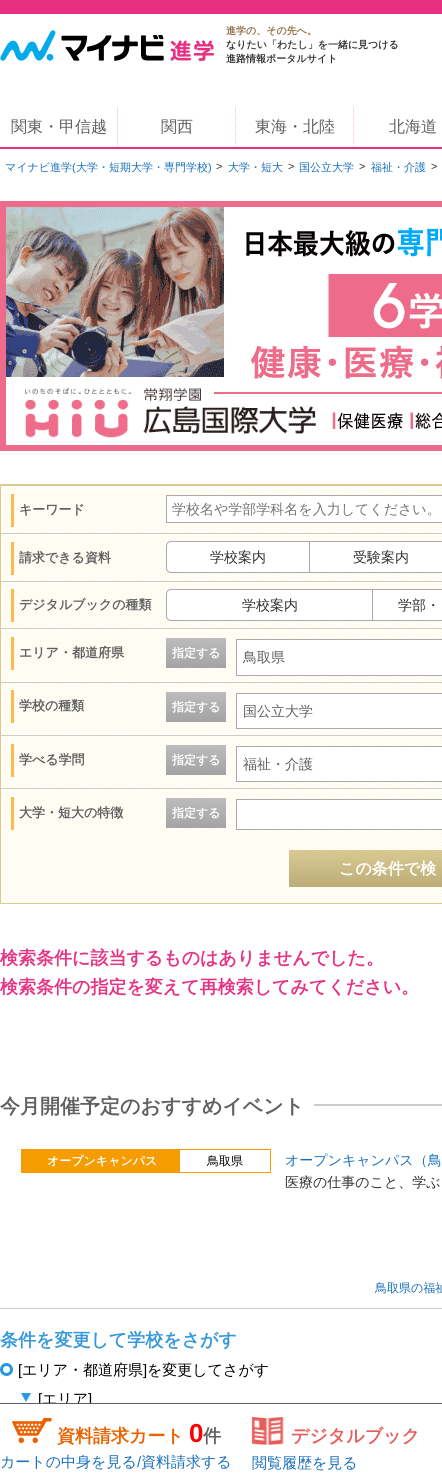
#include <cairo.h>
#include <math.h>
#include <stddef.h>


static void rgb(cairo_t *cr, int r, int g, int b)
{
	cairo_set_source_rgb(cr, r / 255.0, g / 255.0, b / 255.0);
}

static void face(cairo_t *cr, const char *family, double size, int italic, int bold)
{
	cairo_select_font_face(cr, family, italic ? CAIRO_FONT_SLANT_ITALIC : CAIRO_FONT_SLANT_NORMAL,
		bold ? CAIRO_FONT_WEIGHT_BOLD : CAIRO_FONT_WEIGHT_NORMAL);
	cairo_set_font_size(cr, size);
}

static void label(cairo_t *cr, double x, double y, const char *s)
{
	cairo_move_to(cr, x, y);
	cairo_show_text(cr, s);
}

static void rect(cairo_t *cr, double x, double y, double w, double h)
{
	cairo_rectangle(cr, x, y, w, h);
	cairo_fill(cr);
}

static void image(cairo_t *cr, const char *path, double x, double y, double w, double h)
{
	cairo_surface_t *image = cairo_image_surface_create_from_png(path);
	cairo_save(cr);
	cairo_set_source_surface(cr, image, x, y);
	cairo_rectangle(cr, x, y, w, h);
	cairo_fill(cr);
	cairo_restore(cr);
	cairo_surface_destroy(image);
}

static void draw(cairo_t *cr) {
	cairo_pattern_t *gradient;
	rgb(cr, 255, 255, 255);
	cairo_paint(cr);
	rgb(cr, 230, 48, 130);
	rect(cr, 0, 0, 442, 14);
	image(cr, "image0.png", 0, 30, 214, 31);
	face(cr, "WenQuanYi Zen Hei", 10, 0, 1);
	rgb(cr, 142, 109, 67);
	label(cr, 226, 34, "進学の、その先へ。");
	rgb(cr, 49, 49, 49);
	label(cr, 226, 48, "なりたい「わたし」を一緒に見つける");
	label(cr, 226, 62, "進路情報ポータルサイト");
	rgb(cr, 230, 48, 130);
	rect(cr, 0, 147, 442, 2);
	face(cr, "WenQuanYi Zen Hei Medium", 16, 0, 0);
	rgb(cr, 96, 96, 96);
	label(cr, 11, 132, "関東・甲信越");
	cairo_new_path(cr);
	cairo_move_to(cr, 117.5, 107);
	cairo_line_to(cr, 117.5, 147);
	rgb(cr, 255, 186, 217);
	cairo_set_line_width(cr, 1);
	cairo_set_dash(cr, (double[]){1, 1}, 2, 0);
	cairo_stroke(cr);
	rgb(cr, 96, 96, 96);
	label(cr, 161, 132, "関西");
	cairo_new_path(cr);
	cairo_move_to(cr, 235.5, 107);
	cairo_line_to(cr, 235.5, 147);
	rgb(cr, 255, 186, 217);
	cairo_stroke(cr);
	rgb(cr, 96, 96, 96);
	label(cr, 255, 132, "東海・北陸");
	cairo_new_path(cr);
	cairo_move_to(cr, 353.5, 107);
	cairo_line_to(cr, 353.5, 147);
	rgb(cr, 255, 186, 217);
	cairo_stroke(cr);
	rgb(cr, 96, 96, 96);
	label(cr, 389, 132, "北海道");
	face(cr, "WenQuanYi Zen Hei Medium", 11, 0, 0);
	rgb(cr, 23, 111, 186);
	label(cr, 5, 171, "マイナビ進学");
	face(cr, "Liberation Sans", 11, 0, 0);
	label(cr, 72, 171, "(");
	face(cr, "WenQuanYi Zen Hei Medium", 11, 0, 0);
	label(cr, 76, 171, "大学・短期大学・専門学校");
	face(cr, "Liberation Sans", 11, 0, 0);
	label(cr, 208, 171, ")");
	rgb(cr, 49, 49, 49);
	label(cr, 216, 170, ">");
	face(cr, "WenQuanYi Zen Hei Medium", 11, 0, 0);
	rgb(cr, 23, 111, 186);
	label(cr, 228, 171, "大学・短大");
	face(cr, "Liberation Sans", 11, 0, 0);
	rgb(cr, 49, 49, 49);
	label(cr, 288, 170, ">");
	face(cr, "WenQuanYi Zen Hei Medium", 11, 0, 0);
	rgb(cr, 23, 111, 186);
	label(cr, 299, 171, "国公立大学");
	face(cr, "Liberation Sans", 11, 0, 0);
	rgb(cr, 49, 49, 49);
	label(cr, 359, 170, ">");
	face(cr, "WenQuanYi Zen Hei Medium", 11, 0, 0);
	rgb(cr, 23, 111, 186);
	label(cr, 371, 171, "福祉・介護");
	face(cr, "Liberation Sans", 11, 0, 0);
	rgb(cr, 49, 49, 49);
	label(cr, 431, 170, ">");
	image(cr, "image1.png", 0, 201, 442, 250);
	image(cr, "image2.png", 1, 486, 441, 417);
	rgb(cr, 217, 201, 147);
	rect(cr, 0, 484, 442, 2);
	rect(cr, 0, 903, 442, 1);
	rect(cr, 0, 484, 1, 420);
	rgb(cr, 255, 186, 76);
	rect(cr, 11, 494, 3, 33);
	face(cr, "WenQuanYi Zen Hei", 13, 0, 1);
	rgb(cr, 96, 96, 96);
	label(cr, 19, 514, "キーワード");
	rgb(cr, 255, 255, 255);
	cairo_rectangle(cr, 166.5, 495.5, 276, 27);
	cairo_fill_preserve(cr);
	rgb(cr, 170, 170, 170);
	cairo_set_dash(cr, NULL, 0, 0);
	cairo_stroke(cr);
	face(cr, "WenQuanYi Zen Hei Medium", 14, 0, 0);
	rgb(cr, 117, 117, 117);
	label(cr, 172, 514, "学校名や学部学科名を入力してください。");
	rgb(cr, 255, 186, 76);
	rect(cr, 11, 542, 3, 33);
	face(cr, "WenQuanYi Zen Hei", 13, 0, 1);
	rgb(cr, 96, 96, 96);
	label(cr, 19, 562, "請求できる資料");
	rgb(cr, 204, 204, 204);
	rect(cr, 1, 533, 441, 1);
	rgb(cr, 255, 255, 255);
	cairo_new_path(cr);
	cairo_move_to(cr, 171, 541.5);
	cairo_line_to(cr, 309.5, 541.5);
	cairo_line_to(cr, 309.5, 572.5);
	cairo_line_to(cr, 171, 572.5);
	cairo_curve_to(cr, 168.5, 572.5, 166.5, 570.5, 166.5, 568);
	cairo_line_to(cr, 166.5, 546);
	cairo_curve_to(cr, 166.5, 543.5, 168.5, 541.5, 171, 541.5);
	cairo_close_path(cr);
	cairo_fill_preserve(cr);
	rgb(cr, 170, 170, 170);
	cairo_stroke(cr);
	face(cr, "WenQuanYi Zen Hei Medium", 14, 0, 0);
	rgb(cr, 49, 49, 49);
	label(cr, 210, 562, "学校案内");
	rgb(cr, 255, 255, 255);
	rect(cr, 310, 542, 132, 30);
	rgb(cr, 170, 170, 170);
	rect(cr, 310, 541, 132, 1);
	rect(cr, 310, 572, 132, 1);
	rgb(cr, 49, 49, 49);
	label(cr, 353, 562, "受験案内");
	rgb(cr, 255, 186, 76);
	rect(cr, 11, 589, 3, 33);
	face(cr, "WenQuanYi Zen Hei", 13, 0, 1);
	rgb(cr, 96, 96, 96);
	label(cr, 19, 609, "デジタルブックの種類");
	rgb(cr, 204, 204, 204);
	rect(cr, 1, 581, 441, 1);
	rgb(cr, 255, 255, 255);
	cairo_new_path(cr);
	cairo_move_to(cr, 171, 589.5);
	cairo_line_to(cr, 372.5, 589.5);
	cairo_line_to(cr, 372.5, 620.5);
	cairo_line_to(cr, 171, 620.5);
	cairo_curve_to(cr, 168.5, 620.5, 166.5, 618.5, 166.5, 616);
	cairo_line_to(cr, 166.5, 594);
	cairo_curve_to(cr, 166.5, 591.5, 168.5, 589.5, 171, 589.5);
	cairo_close_path(cr);
	cairo_fill_preserve(cr);
	rgb(cr, 170, 170, 170);
	cairo_stroke(cr);
	face(cr, "WenQuanYi Zen Hei Medium", 14, 0, 0);
	rgb(cr, 49, 49, 49);
	label(cr, 242, 610, "学校案内");
	rgb(cr, 255, 255, 255);
	rect(cr, 373, 590, 69, 30);
	rgb(cr, 170, 170, 170);
	rect(cr, 373, 589, 69, 1);
	rect(cr, 373, 620, 69, 1);
	rgb(cr, 49, 49, 49);
	label(cr, 398, 610, "学部・");
	rgb(cr, 255, 186, 76);
	rect(cr, 11, 637, 3, 33);
	face(cr, "WenQuanYi Zen Hei", 13, 0, 1);
	rgb(cr, 96, 96, 96);
	label(cr, 19, 657, "エリア・都道府県");
	rgb(cr, 204, 204, 204);
	rect(cr, 1, 628, 441, 1);
	gradient = cairo_pattern_create_linear(196, 638, 196, 668);
	cairo_pattern_add_color_stop_rgba(gradient, 0, 0.737, 0.737, 0.737, 1);
	cairo_pattern_add_color_stop_rgba(gradient, 1, 0.639, 0.639, 0.639, 1);
	cairo_set_source(cr, gradient);
	cairo_pattern_destroy(gradient);
	rect(cr, 166, 638, 60, 30);
	face(cr, "WenQuanYi Zen Hei", 12, 0, 1);
	rgb(cr, 255, 255, 255);
	label(cr, 172, 657, "指定する");
	cairo_rectangle(cr, 236.5, 639.5, 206, 36);
	cairo_fill_preserve(cr);
	rgb(cr, 170, 170, 170);
	cairo_stroke(cr);
	face(cr, "WenQuanYi Zen Hei Medium", 14, 0, 0);
	rgb(cr, 96, 96, 96);
	label(cr, 243, 662, "鳥取県");
	rgb(cr, 255, 186, 76);
	rect(cr, 11, 690, 3, 33);
	face(cr, "WenQuanYi Zen Hei", 13, 0, 1);
	rgb(cr, 96, 96, 96);
	label(cr, 19, 710, "学校の種類");
	rgb(cr, 204, 204, 204);
	rect(cr, 1, 682, 441, 1);
	gradient = cairo_pattern_create_linear(196, 692, 196, 722);
	cairo_pattern_add_color_stop_rgba(gradient, 0, 0.737, 0.737, 0.737, 1);
	cairo_pattern_add_color_stop_rgba(gradient, 1, 0.639, 0.639, 0.639, 1);
	cairo_set_source(cr, gradient);
	cairo_pattern_destroy(gradient);
	rect(cr, 166, 692, 60, 30);
	face(cr, "WenQuanYi Zen Hei", 12, 0, 1);
	rgb(cr, 255, 255, 255);
	label(cr, 172, 711, "指定する");
	cairo_rectangle(cr, 236.5, 693.5, 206, 35);
	cairo_fill_preserve(cr);
	rgb(cr, 170, 170, 170);
	cairo_stroke(cr);
	face(cr, "WenQuanYi Zen Hei Medium", 14, 0, 0);
	rgb(cr, 96, 96, 96);
	label(cr, 243, 716, "国公立大学");
	rgb(cr, 255, 186, 76);
	rect(cr, 11, 744, 3, 33);
	face(cr, "WenQuanYi Zen Hei", 13, 0, 1);
	rgb(cr, 96, 96, 96);
	label(cr, 19, 764, "学べる学問");
	rgb(cr, 204, 204, 204);
	rect(cr, 1, 735, 441, 1);
	gradient = cairo_pattern_create_linear(196, 745, 196, 775);
	cairo_pattern_add_color_stop_rgba(gradient, 0, 0.737, 0.737, 0.737, 1);
	cairo_pattern_add_color_stop_rgba(gradient, 1, 0.639, 0.639, 0.639, 1);
	cairo_set_source(cr, gradient);
	cairo_pattern_destroy(gradient);
	rect(cr, 166, 745, 60, 30);
	face(cr, "WenQuanYi Zen Hei", 12, 0, 1);
	rgb(cr, 255, 255, 255);
	label(cr, 172, 764, "指定する");
	cairo_rectangle(cr, 236.5, 746.5, 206, 35);
	cairo_fill_preserve(cr);
	rgb(cr, 170, 170, 170);
	cairo_stroke(cr);
	face(cr, "WenQuanYi Zen Hei Medium", 14, 0, 0);
	rgb(cr, 96, 96, 96);
	label(cr, 243, 769, "福祉・介護");
	rgb(cr, 255, 186, 76);
	rect(cr, 11, 797, 3, 33);
	face(cr, "WenQuanYi Zen Hei", 13, 0, 1);
	rgb(cr, 96, 96, 96);
	label(cr, 19, 817, "大学・短大の特徴");
	rgb(cr, 204, 204, 204);
	rect(cr, 1, 788, 441, 1);
	gradient = cairo_pattern_create_linear(196, 798, 196, 828);
	cairo_pattern_add_color_stop_rgba(gradient, 0, 0.737, 0.737, 0.737, 1);
	cairo_pattern_add_color_stop_rgba(gradient, 1, 0.639, 0.639, 0.639, 1);
	cairo_set_source(cr, gradient);
	cairo_pattern_destroy(gradient);
	rect(cr, 166, 798, 60, 30);
	face(cr, "WenQuanYi Zen Hei", 12, 0, 1);
	rgb(cr, 255, 255, 255);
	label(cr, 172, 817, "指定する");
	cairo_rectangle(cr, 236.5, 799.5, 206, 30);
	cairo_fill_preserve(cr);
	rgb(cr, 170, 170, 170);
	cairo_stroke(cr);
	gradient = cairo_pattern_create_linear(412, 850, 412, 887);
	cairo_pattern_add_color_stop_rgba(gradient, 0, 0.851, 0.788, 0.576, 1);
	cairo_pattern_add_color_stop_rgba(gradient, 1, 0.737, 0.675, 0.467, 1);
	cairo_set_source(cr, gradient);
	cairo_pattern_destroy(gradient);
	rect(cr, 289, 850, 153, 37);
	face(cr, "WenQuanYi Zen Hei", 16, 0, 1);
	rgb(cr, 255, 255, 255);
	label(cr, 339, 874, "この条件で検");
	face(cr, "WenQuanYi Zen Hei", 18, 0, 1);
	rgb(cr, 230, 52, 132);
	label(cr, 0, 964, "検索条件に該当するものはありませんでした。");
	label(cr, 0, 993, "検索条件の指定を変えて再検索してみてください。");
	rgb(cr, 204, 204, 204);
	rect(cr, 314, 1104, 128, 2);
	face(cr, "WenQuanYi Zen Hei", 20, 0, 1);
	rgb(cr, 96, 96, 96);
	label(cr, 0, 1113, "今月開催予定のおすすめイベント");
	rgb(cr, 244, 156, 0);
	rect(cr, 21, 1149, 250, 24);
	face(cr, "WenQuanYi Zen Hei", 12, 0, 1);
	rgb(cr, 255, 255, 255);
	label(cr, 47, 1165, "オープンキャンパス");
	rect(cr, 180, 1150, 90, 22);
	face(cr, "WenQuanYi Zen Hei Medium", 12, 0, 0);
	rgb(cr, 0, 0, 0);
	label(cr, 207, 1165, "鳥取県");
	face(cr, "WenQuanYi Zen Hei Medium", 14, 0, 0);
	rgb(cr, 23, 111, 186);
	label(cr, 285, 1165, "オープンキャンパス（鳥");
	rgb(cr, 49, 49, 49);
	label(cr, 285, 1187, "医療の仕事のこと、学ぶ");
	face(cr, "WenQuanYi Zen Hei Medium", 12, 0, 0);
	rgb(cr, 23, 111, 186);
	label(cr, 375, 1292, "鳥取県の福祉");
	rgb(cr, 204, 204, 204);
	rect(cr, 0, 1308, 442, 1);
	face(cr, "WenQuanYi Zen Hei", 18, 0, 1);
	rgb(cr, 52, 152, 219);
	label(cr, 0, 1346, "条件を変更して学校をさがす");
	image(cr, "image3.png", 0, 1363, 13, 13);
	face(cr, "Liberation Sans", 15, 0, 0);
	rgb(cr, 0, 0, 0);
	label(cr, 18, 1375, "[");
	face(cr, "WenQuanYi Zen Hei Medium", 15, 0, 0);
	label(cr, 22, 1375, "エリア・都道府県");
	face(cr, "Liberation Sans", 15, 0, 0);
	label(cr, 143, 1375, "]");
	face(cr, "WenQuanYi Zen Hei Medium", 15, 0, 0);
	label(cr, 147, 1375, "を変更してさがす");
	image(cr, "image4.png", 21, 1393, 10, 9);
	face(cr, "Liberation Sans", 15, 0, 0);
	label(cr, 38, 1404, "[");
	face(cr, "WenQuanYi Zen Hei Medium", 15, 0, 0);
	label(cr, 42, 1404, "エリア");
	face(cr, "Liberation Sans", 15, 0, 0);
	label(cr, 88, 1404, "]");
	rgb(cr, 255, 255, 255);
	rect(cr, 39, 1404, 53, 4);
	rgb(cr, 96, 96, 96);
	rect(cr, 0, 1403, 442, 1);
	image(cr, "image5.png", 12, 1418, 40, 25);
	face(cr, "WenQuanYi Zen Hei", 18, 0, 1);
	rgb(cr, 235, 97, 0);
	label(cr, 57, 1442, "資料請求カート");
	face(cr, "Liberation Sans", 26, 0, 1);
	rgb(cr, 255, 0, 0);
	label(cr, 189, 1442, "0");
	face(cr, "WenQuanYi Zen Hei", 18, 0, 1);
	rgb(cr, 96, 96, 96);
	label(cr, 203, 1442, "件");
	face(cr, "WenQuanYi Zen Hei Medium", 15, 0, 0);
	rgb(cr, 23, 111, 186);
	label(cr, 0, 1467, "カートの中身を見る");
	face(cr, "Liberation Sans", 15, 0, 0);
	label(cr, 137, 1467, "/");
	face(cr, "WenQuanYi Zen Hei Medium", 15, 0, 0);
	label(cr, 141, 1467, "資料請求する");
	image(cr, "image6.png", 251, 1417, 33, 28);
	face(cr, "WenQuanYi Zen Hei", 18, 0, 1);
	rgb(cr, 230, 93, 90);
	label(cr, 291, 1442, "デジタルブック");
	face(cr, "WenQuanYi Zen Hei Medium", 15, 0, 0);
	rgb(cr, 23, 111, 186);
	label(cr, 252, 1468, "閲覧履歴を見る");
}

int main(void) {
	cairo_surface_t *surface = cairo_image_surface_create(CAIRO_FORMAT_RGB24, 442, 1479);
	cairo_t *cr = cairo_create(surface);
	cairo_font_options_t *options = cairo_font_options_create();
	cairo_font_options_set_hint_metrics(options, CAIRO_HINT_METRICS_OFF);
	cairo_font_options_set_hint_style(options, CAIRO_HINT_STYLE_NONE);
	cairo_set_font_options(cr, options);
	cairo_set_miter_limit(cr, 4);
	draw(cr);
	cairo_surface_write_to_png(surface, "render.png");
	cairo_font_options_destroy(options);
	cairo_destroy(cr);
	cairo_surface_destroy(surface);
	return 0;
}
